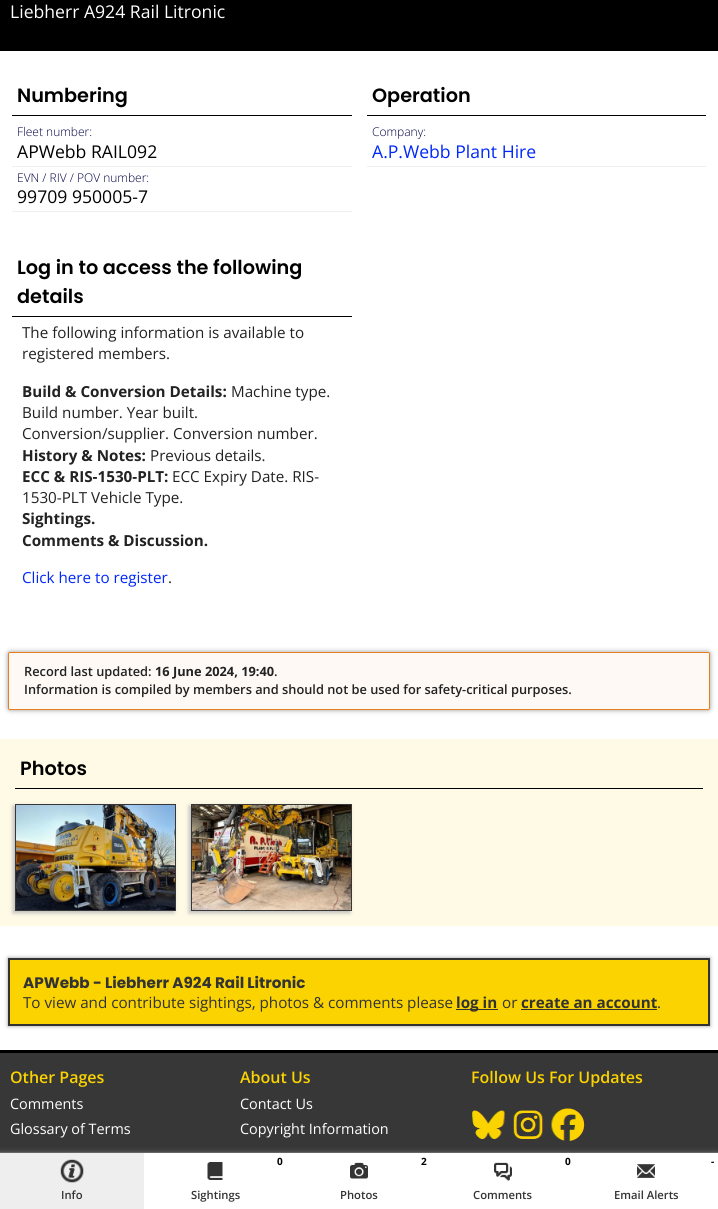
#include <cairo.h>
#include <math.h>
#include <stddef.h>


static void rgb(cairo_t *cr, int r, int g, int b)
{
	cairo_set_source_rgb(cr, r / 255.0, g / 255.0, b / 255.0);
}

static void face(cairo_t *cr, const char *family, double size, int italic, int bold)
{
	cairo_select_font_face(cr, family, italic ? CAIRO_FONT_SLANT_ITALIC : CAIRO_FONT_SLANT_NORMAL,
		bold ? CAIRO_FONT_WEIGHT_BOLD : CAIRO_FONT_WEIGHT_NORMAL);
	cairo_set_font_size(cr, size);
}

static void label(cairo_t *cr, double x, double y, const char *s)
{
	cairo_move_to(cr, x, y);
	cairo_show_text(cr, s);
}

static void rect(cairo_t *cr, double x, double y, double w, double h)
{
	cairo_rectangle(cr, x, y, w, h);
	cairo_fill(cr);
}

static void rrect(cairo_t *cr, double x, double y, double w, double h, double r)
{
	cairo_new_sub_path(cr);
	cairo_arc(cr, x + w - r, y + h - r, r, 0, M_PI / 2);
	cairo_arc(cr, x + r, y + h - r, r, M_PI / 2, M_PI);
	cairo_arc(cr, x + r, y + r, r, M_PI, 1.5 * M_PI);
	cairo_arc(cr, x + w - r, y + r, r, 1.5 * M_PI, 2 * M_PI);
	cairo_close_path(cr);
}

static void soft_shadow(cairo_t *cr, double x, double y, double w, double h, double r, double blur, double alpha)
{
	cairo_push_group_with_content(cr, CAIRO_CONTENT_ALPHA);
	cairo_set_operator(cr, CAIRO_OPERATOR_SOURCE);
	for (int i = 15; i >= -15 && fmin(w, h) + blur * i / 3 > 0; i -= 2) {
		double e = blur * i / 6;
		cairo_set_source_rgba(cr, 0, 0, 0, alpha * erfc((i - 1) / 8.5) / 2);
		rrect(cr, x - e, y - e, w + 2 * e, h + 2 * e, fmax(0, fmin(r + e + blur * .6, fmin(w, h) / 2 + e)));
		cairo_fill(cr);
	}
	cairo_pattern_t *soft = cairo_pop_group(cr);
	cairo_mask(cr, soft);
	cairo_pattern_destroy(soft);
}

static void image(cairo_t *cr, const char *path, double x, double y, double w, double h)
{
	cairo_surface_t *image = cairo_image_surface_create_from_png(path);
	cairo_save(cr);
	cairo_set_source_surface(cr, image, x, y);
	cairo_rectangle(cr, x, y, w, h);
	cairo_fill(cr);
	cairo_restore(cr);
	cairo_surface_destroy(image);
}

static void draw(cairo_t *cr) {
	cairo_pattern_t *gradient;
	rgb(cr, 255, 255, 255);
	cairo_paint(cr);
	rgb(cr, 0, 0, 0);
	rect(cr, 0, 48, 718, 3);
	gradient = cairo_pattern_create_linear(359, -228, 359, 48);
	cairo_pattern_add_color_stop_rgba(gradient, 0.3, 0, 0, 0, 0);
	cairo_pattern_add_color_stop_rgba(gradient, 0.8, 0, 0, 0, 1);
	cairo_set_source(cr, gradient);
	cairo_pattern_destroy(gradient);
	rect(cr, 0, 0, 718, 48);
	face(cr, "Open Sans", 17.6, 0, 0);
	rgb(cr, 255, 255, 255);
	label(cr, 10, 18, "Liebherr A924 Rail Litronic");
	rgb(cr, 0, 0, 0);
	rect(cr, 12, 115, 340, 1);
	face(cr, "Poppins SemiBold", 19.25, 0, 0);
	label(cr, 17, 102, "Numbering");
	rgb(cr, 239, 239, 239);
	rect(cr, 12, 166, 340, 1);
	face(cr, "Open Sans Light", 12, 0, 0);
	rgb(cr, 0, 0, 68);
	label(cr, 17, 136, "Fleet number:");
	face(cr, "Open Sans", 17.6, 0, 0);
	rgb(cr, 0, 0, 0);
	label(cr, 17, 158, "APWebb RAIL092");
	rgb(cr, 239, 239, 239);
	rect(cr, 12, 211, 340, 1);
	face(cr, "Open Sans Light", 12, 0, 0);
	rgb(cr, 0, 0, 68);
	label(cr, 17, 182, "EVN / RIV / POV number:");
	face(cr, "Open Sans", 17.6, 0, 0);
	rgb(cr, 0, 0, 0);
	label(cr, 17, 203, "99709 950005-7");
	rect(cr, 367, 115, 339, 1);
	face(cr, "Poppins SemiBold", 19.25, 0, 0);
	label(cr, 372, 102, "Operation");
	rgb(cr, 239, 239, 239);
	rect(cr, 367, 166, 339, 1);
	face(cr, "Open Sans Light", 12, 0, 0);
	rgb(cr, 0, 0, 68);
	label(cr, 372, 136, "Company:");
	face(cr, "Open Sans", 17.6, 0, 0);
	rgb(cr, 0, 39, 250);
	label(cr, 372, 158, "A.P.Webb Plant Hire");
	rgb(cr, 0, 0, 0);
	rect(cr, 12, 316, 340, 1);
	face(cr, "Poppins SemiBold", 19.25, 0, 0);
	label(cr, 17, 274, "Log in to access the following");
	label(cr, 17, 303, "details");
	face(cr, "Open Sans", 15.2, 0, 0);
	rgb(cr, 34, 34, 34);
	label(cr, 22, 338, "The following information is available to");
	label(cr, 22, 359, "registered members.");
	face(cr, "Open Sans", 15.2, 0, 1);
	label(cr, 22, 397, "Build & Conversion Details:");
	face(cr, "Open Sans", 15.2, 0, 0);
	label(cr, 231, 397, "Machine type.");
	label(cr, 22, 418, "Build number. Year built.");
	label(cr, 22, 439, "Conversion/supplier. Conversion number.");
	face(cr, "Open Sans", 15.2, 0, 1);
	label(cr, 22, 461, "History & Notes:");
	face(cr, "Open Sans", 15.2, 0, 0);
	label(cr, 150, 461, "Previous details.");
	face(cr, "Open Sans", 15.2, 0, 1);
	label(cr, 22, 482, "ECC & RIS-1530-PLT:");
	face(cr, "Open Sans", 15.2, 0, 0);
	label(cr, 172, 482, "ECC Expiry Date. RIS-");
	label(cr, 22, 503, "1530-PLT Vehicle Type.");
	face(cr, "Open Sans", 15.2, 0, 1);
	label(cr, 22, 524, "Sightings.");
	label(cr, 22, 546, "Comments & Discussion.");
	face(cr, "Open Sans", 15.2, 0, 0);
	rgb(cr, 0, 39, 250);
	label(cr, 22, 583, "Click here to register");
	rgb(cr, 34, 34, 34);
	label(cr, 168, 583, ".");
	rgb(cr, 153, 153, 153);
	soft_shadow(cr, 8, 652, 702, 58, 2, 2.5, 1);
	rgb(cr, 254, 249, 245);
	rrect(cr, 8.5, 652.5, 701, 57, 1.5);
	cairo_fill_preserve(cr);
	rgb(cr, 230, 126, 34);
	cairo_set_line_width(cr, 1);
	cairo_stroke(cr);
	face(cr, "Open Sans SemiBold", 12.8, 0, 0);
	rgb(cr, 34, 34, 34);
	label(cr, 24, 676, "Record last updated:");
	face(cr, "Open Sans", 12.8, 0, 1);
	label(cr, 155, 676, "16 June 2024, 19:40");
	face(cr, "Open Sans SemiBold", 12.8, 0, 0);
	label(cr, 274, 676, ".");
	label(cr, 24, 694, "Information is compiled by members and should not be used for safety-critical purposes.");
	rgb(cr, 254, 250, 229);
	rect(cr, 0, 739, 718, 187);
	rgb(cr, 0, 0, 0);
	rect(cr, 15, 788, 688, 1);
	face(cr, "Poppins SemiBold", 19.25, 0, 0);
	label(cr, 20, 775, "Photos");
	rgb(cr, 187, 187, 187);
	soft_shadow(cr, 13, 806, 161, 107, 0, 2, 1);
	cairo_rectangle(cr, 15.5, 804.5, 160, 106);
	rgb(cr, 55, 55, 55);
	cairo_stroke(cr);
	image(cr, "image0.png", 16, 805, 159, 105);
	rgb(cr, 187, 187, 187);
	soft_shadow(cr, 189, 806, 161, 107, 0, 2, 1);
	cairo_rectangle(cr, 191.5, 804.5, 160, 106);
	rgb(cr, 55, 55, 55);
	cairo_stroke(cr);
	image(cr, "image1.png", 192, 805, 159, 105);
	rgb(cr, 153, 153, 153);
	soft_shadow(cr, 8, 958, 702, 68, 0, 2, 1);
	rgb(cr, 250, 211, 0);
	cairo_rectangle(cr, 9, 959, 700, 66);
	cairo_fill_preserve(cr);
	rgb(cr, 51, 51, 51);
	cairo_set_line_width(cr, 2);
	cairo_stroke(cr);
	face(cr, "Poppins", 15.2, 0, 1);
	label(cr, 23, 988, "APWebb - Liebherr A924 Rail Litronic");
	face(cr, "Open Sans", 15.2, 0, 0);
	label(cr, 23, 1008, "To view and contribute sightings, photos & comments please");
	rect(cr, 456, 1009, 42, 1);
	face(cr, "Open Sans", 15.2, 0, 1);
	label(cr, 456, 1008, "log in");
	face(cr, "Open Sans", 15.2, 0, 0);
	label(cr, 502, 1008, "or");
	face(cr, "Open Sans", 15.2, 0, 1);
	label(cr, 521, 1008, "create an account");
	rect(cr, 521, 1009, 136, 1);
	face(cr, "Open Sans", 15.2, 0, 0);
	label(cr, 657, 1008, ".");
	rgb(cr, 55, 55, 55);
	rect(cr, 0, 1053, 718, 99);
	rgb(cr, 102, 102, 102);
	soft_shadow(cr, 0, 1152, 718, 57, 0, 2.5, 1);
	rgb(cr, 255, 255, 255);
	rect(cr, 144, 1153, 574, 56);
	rgb(cr, 102, 102, 102);
	rect(cr, 0, 1152, 718, 1);
	rgb(cr, 238, 238, 238);
	rect(cr, 0, 1153, 144, 56);
	image(cr, "image2.png", 60, 1159, 24, 24);
	face(cr, "Open Sans SemiBold", 11.25, 0, 0);
	rgb(cr, 51, 51, 51);
	label(cr, 61, 1199, "Info");
	image(cr, "image3.png", 207, 1162, 16, 18);
	face(cr, "Open Sans", 10, 0, 1);
	rgb(cr, 0, 0, 0);
	label(cr, 277, 1165, "0");
	face(cr, "Open Sans SemiBold", 11.25, 0, 0);
	rgb(cr, 51, 51, 51);
	label(cr, 191, 1199, "Sightings");
	image(cr, "image4.png", 350, 1162, 18, 17);
	face(cr, "Open Sans", 10, 0, 1);
	rgb(cr, 0, 0, 0);
	label(cr, 421, 1165, "2");
	face(cr, "Open Sans SemiBold", 11.25, 0, 0);
	rgb(cr, 51, 51, 51);
	label(cr, 340, 1199, "Photos");
	image(cr, "image5.png", 494, 1162, 18, 19);
	face(cr, "Open Sans", 10, 0, 1);
	rgb(cr, 0, 0, 0);
	label(cr, 565, 1165, "0");
	face(cr, "Open Sans SemiBold", 11.25, 0, 0);
	rgb(cr, 51, 51, 51);
	label(cr, 473, 1199, "Comments");
	image(cr, "image6.png", 637, 1164, 18, 14);
	face(cr, "Open Sans", 10, 0, 1);
	rgb(cr, 0, 0, 0);
	label(cr, 711, 1165, "-");
	face(cr, "Open Sans SemiBold", 11.25, 0, 0);
	rgb(cr, 51, 51, 51);
	label(cr, 614, 1199, "Email Alerts");
	rgb(cr, 0, 0, 0);
	rect(cr, 0, 1050, 718, 3);
	face(cr, "Open Sans SemiBold", 16, 0, 0);
	rgb(cr, 250, 211, 0);
	label(cr, 10, 1083, "Other Pages");
	face(cr, "Open Sans", 14.4, 0, 0);
	rgb(cr, 255, 255, 255);
	label(cr, 10, 1109, "Comments");
	label(cr, 10, 1134, "Glossary of Terms");
	face(cr, "Open Sans SemiBold", 16, 0, 0);
	rgb(cr, 250, 211, 0);
	label(cr, 240, 1083, "About Us");
	face(cr, "Open Sans", 14.4, 0, 0);
	rgb(cr, 255, 255, 255);
	label(cr, 240, 1109, "Contact Us");
	label(cr, 240, 1134, "Copyright Information");
	face(cr, "Open Sans SemiBold", 16, 0, 0);
	rgb(cr, 250, 211, 0);
	label(cr, 471, 1083, "Follow Us For Updates");
	image(cr, "image7.png", 472, 1110, 34, 29);
	image(cr, "image8.png", 513, 1110, 31, 29);
	image(cr, "image9.png", 551, 1108, 34, 33);
}

int main(void) {
	cairo_surface_t *surface = cairo_image_surface_create(CAIRO_FORMAT_RGB24, 718, 1209);
	cairo_t *cr = cairo_create(surface);
	cairo_font_options_t *options = cairo_font_options_create();
	cairo_font_options_set_hint_metrics(options, CAIRO_HINT_METRICS_OFF);
	cairo_font_options_set_hint_style(options, CAIRO_HINT_STYLE_NONE);
	cairo_set_font_options(cr, options);
	cairo_set_miter_limit(cr, 4);
	draw(cr);
	cairo_surface_write_to_png(surface, "render.png");
	cairo_font_options_destroy(options);
	cairo_destroy(cr);
	cairo_surface_destroy(surface);
	return 0;
}
